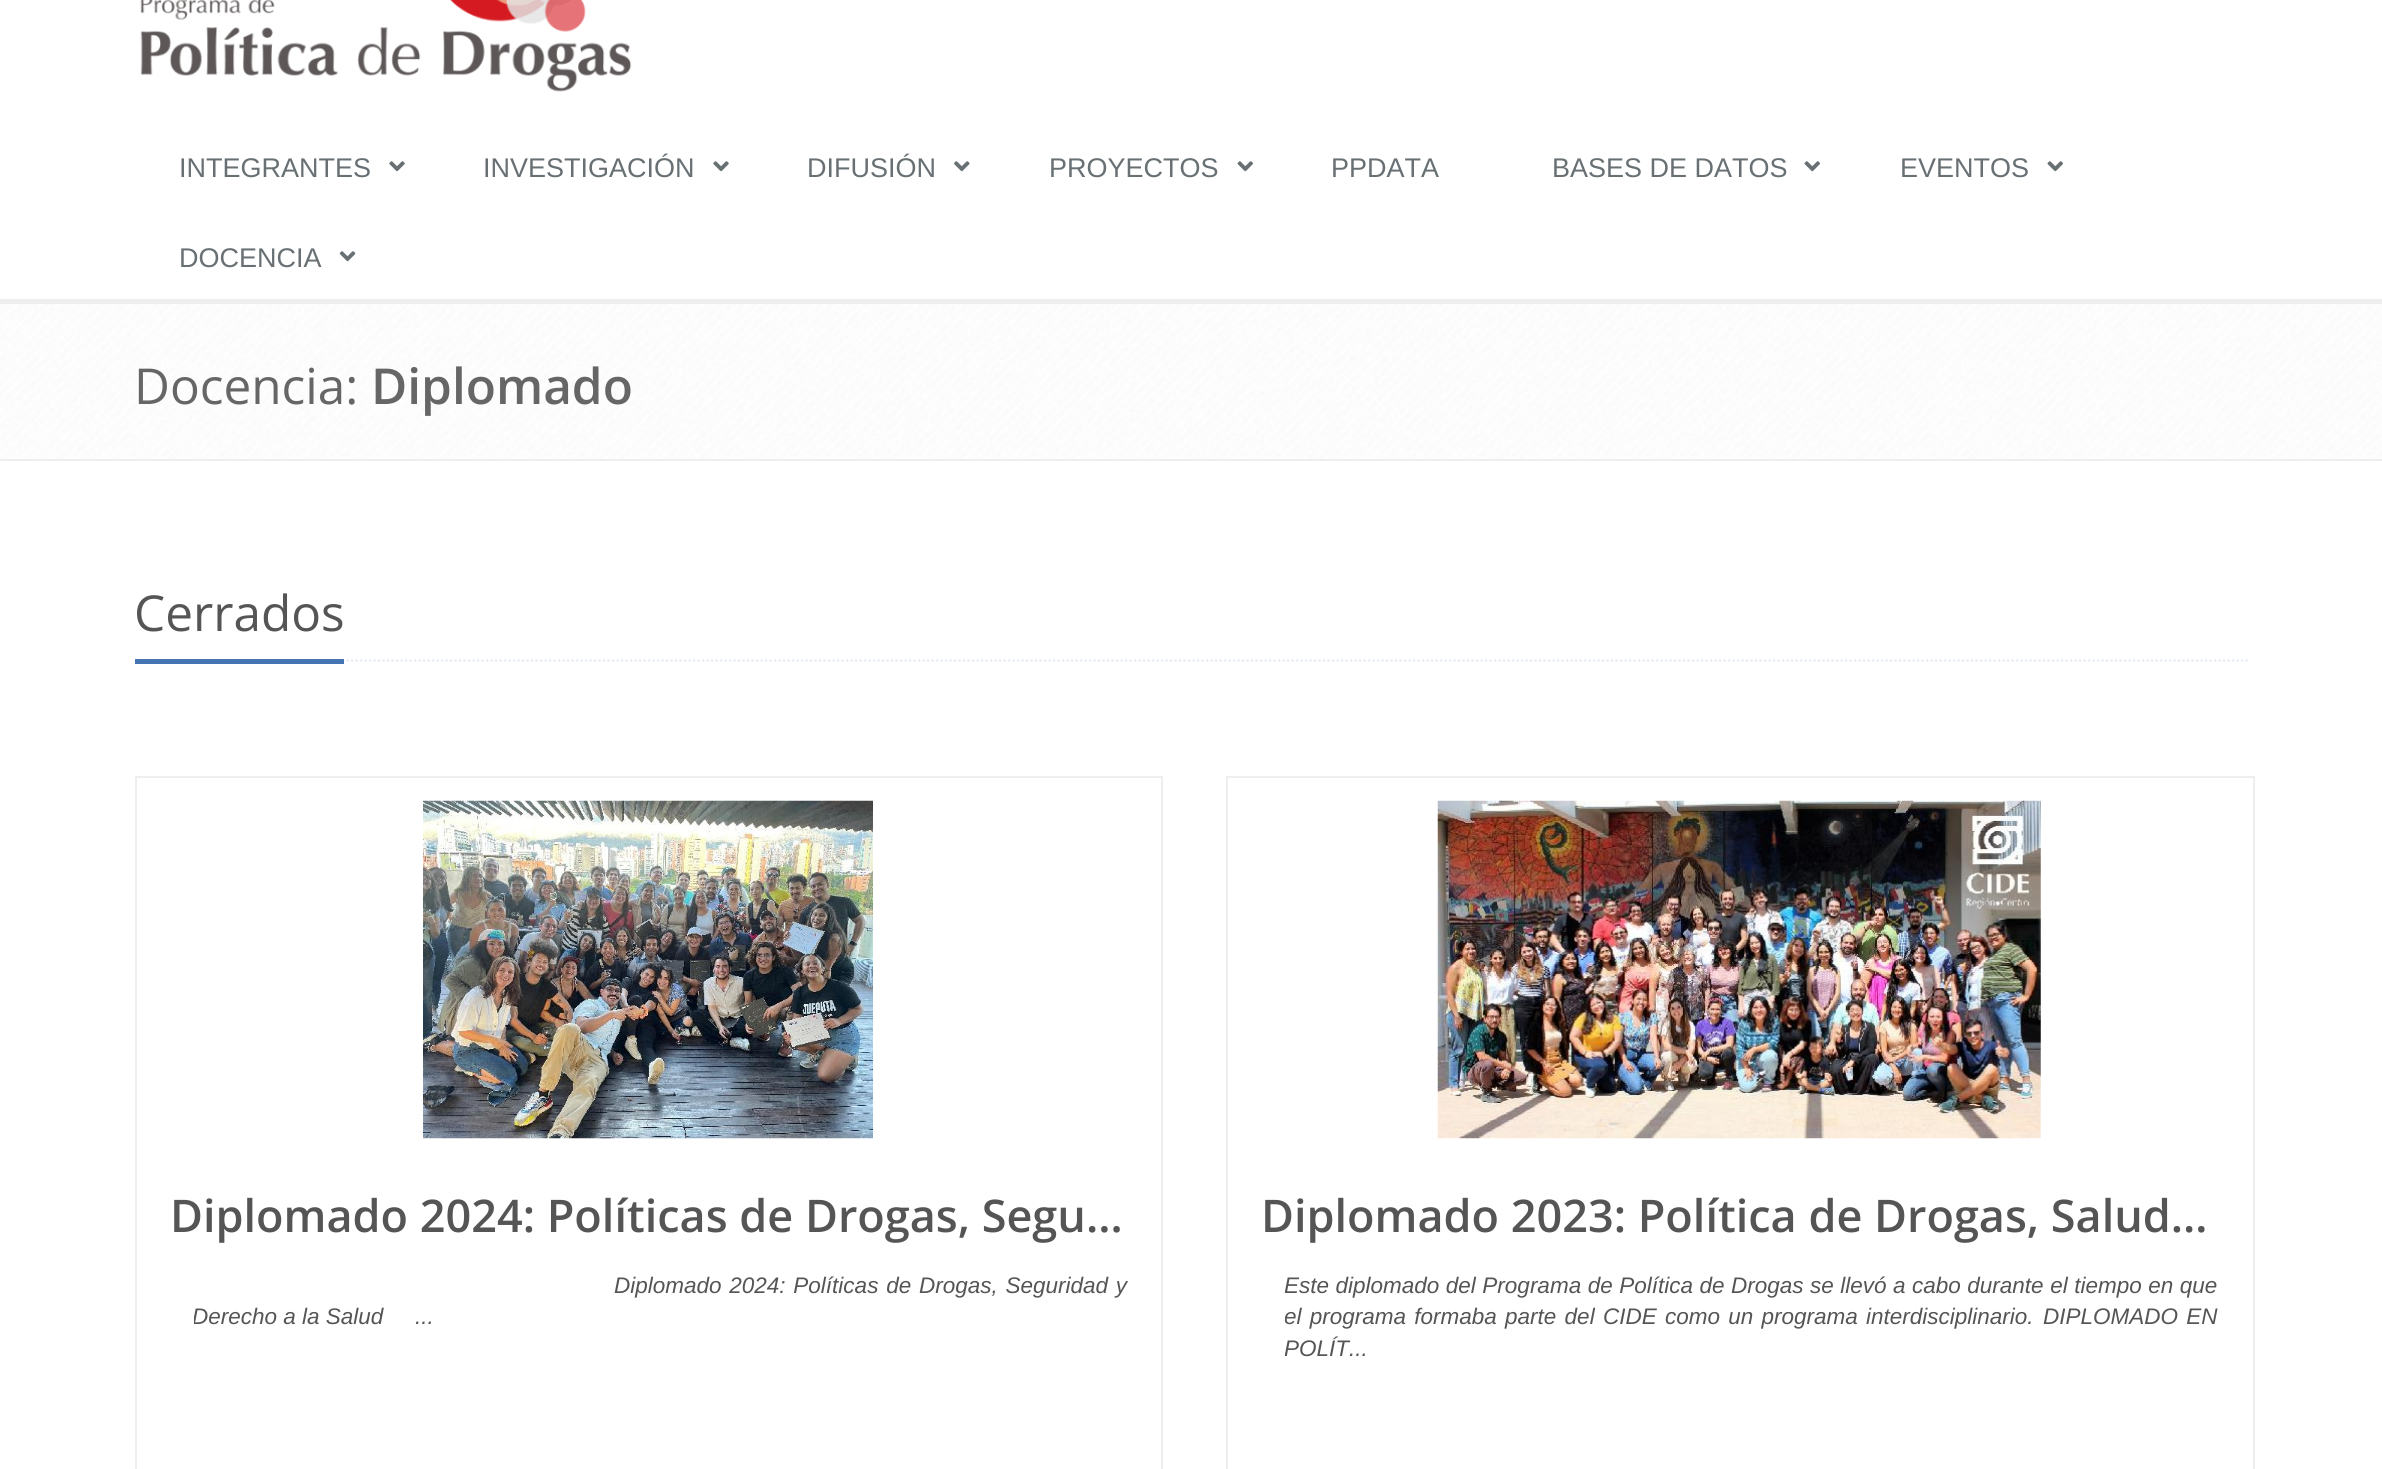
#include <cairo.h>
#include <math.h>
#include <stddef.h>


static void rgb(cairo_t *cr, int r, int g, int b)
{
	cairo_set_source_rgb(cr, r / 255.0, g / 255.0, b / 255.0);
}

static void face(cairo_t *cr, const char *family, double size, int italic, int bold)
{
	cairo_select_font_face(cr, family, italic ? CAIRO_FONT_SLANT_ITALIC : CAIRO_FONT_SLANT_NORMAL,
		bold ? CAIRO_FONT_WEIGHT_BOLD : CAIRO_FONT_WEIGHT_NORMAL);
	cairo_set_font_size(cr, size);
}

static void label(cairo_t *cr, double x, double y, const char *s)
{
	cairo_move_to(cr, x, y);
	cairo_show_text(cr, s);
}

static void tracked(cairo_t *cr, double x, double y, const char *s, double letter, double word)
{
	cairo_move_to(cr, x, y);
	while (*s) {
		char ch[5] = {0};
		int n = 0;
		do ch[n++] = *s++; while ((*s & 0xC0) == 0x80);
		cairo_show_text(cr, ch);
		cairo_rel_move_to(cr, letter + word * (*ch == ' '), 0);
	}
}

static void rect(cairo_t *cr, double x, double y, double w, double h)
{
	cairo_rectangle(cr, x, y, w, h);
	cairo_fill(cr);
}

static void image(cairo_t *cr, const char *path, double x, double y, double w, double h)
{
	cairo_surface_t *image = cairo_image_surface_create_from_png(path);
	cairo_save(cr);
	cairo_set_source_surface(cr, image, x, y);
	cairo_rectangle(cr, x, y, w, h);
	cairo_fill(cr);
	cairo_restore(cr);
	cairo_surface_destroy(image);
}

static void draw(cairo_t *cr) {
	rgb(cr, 255, 255, 255);
	cairo_paint(cr);
	rgb(cr, 238, 238, 238);
	rect(cr, 0, 299, 2382, 5);
	image(cr, "image0.png", 140, 0, 492, 92);
	face(cr, "Liberation Sans", 27, 0, 0);
	rgb(cr, 104, 112, 116);
	label(cr, 179, 177, "INTEGRANTES");
	image(cr, "image1.png", 389, 161, 16, 11);
	label(cr, 483, 177, "INVESTIGACIÓN");
	image(cr, "image1.png", 713, 161, 16, 11);
	label(cr, 807, 177, "DIFUSIÓN");
	image(cr, "image2.png", 954, 161, 16, 11);
	label(cr, 1049, 177, "PROYECTOS");
	image(cr, "image3.png", 1237, 161, 16, 11);
	label(cr, 1331, 177, "PPDATA");
	label(cr, 1552, 177, "BASES DE DATOS");
	image(cr, "image3.png", 1804, 161, 16, 11);
	label(cr, 1900, 177, "EVENTOS");
	image(cr, "image3.png", 2047, 161, 16, 11);
	label(cr, 179, 267, "DOCENCIA");
	image(cr, "image4.png", 339, 251, 17, 11);
	image(cr, "image5.png", 0, 304, 2382, 155);
	rgb(cr, 238, 238, 238);
	rect(cr, 0, 459, 2382, 2);
	face(cr, "Open Sans", 49.5, 0, 0);
	rgb(cr, 102, 102, 102);
	label(cr, 134, 404, "Docencia:");
	face(cr, "Open Sans SemiBold", 49.5, 0, 0);
	label(cr, 371, 404, "Diplomado");
	cairo_new_path(cr);
	cairo_move_to(cr, 135, 660.5);
	cairo_line_to(cr, 2250, 660.5);
	rgb(cr, 228, 233, 240);
	cairo_set_line_width(cr, 2.2);
	cairo_set_dash(cr, (double[]){2.25, 2.25}, 2, 0);
	cairo_stroke(cr);
	rgb(cr, 68, 117, 178);
	rect(cr, 135, 659, 209, 5);
	face(cr, "Open Sans", 49.5, 0, 0);
	rgb(cr, 85, 85, 85);
	label(cr, 134, 631, "Cerrados");
	cairo_rectangle(cr, 136, 777, 1026, 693);
	rgb(cr, 238, 238, 238);
	cairo_set_line_width(cr, 2);
	cairo_set_dash(cr, NULL, 0, 0);
	cairo_stroke(cr);
	image(cr, "image6.png", 423, 800, 450, 339);
	face(cr, "Open Sans SemiBold", 45, 0, 0);
	rgb(cr, 85, 85, 85);
	label(cr, 170, 1232, "Diplomado 2024: Políticas de Drogas, Segu…");
	face(cr, "Liberation Sans", 22.5, 1, 0);
	tracked(cr, 614, 1293, "Diplomado 2024: Políticas de Drogas, Seguridad y", 0, 1.5);
	cairo_save(cr);
	cairo_rectangle(cr, 194, 1269, 933, 63);
	cairo_clip(cr);
	label(cr, 192, 1324, "Derecho a la Salud");
	cairo_restore(cr);
	label(cr, 415, 1324, "...");
	cairo_rectangle(cr, 1227, 777, 1027, 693);
	rgb(cr, 238, 238, 238);
	cairo_stroke(cr);
	image(cr, "image7.png", 1437, 800, 604, 339);
	face(cr, "Open Sans SemiBold", 45, 0, 0);
	rgb(cr, 85, 85, 85);
	label(cr, 1261, 1232, "Diplomado 2023: Política de Drogas, Salud…");
	cairo_save(cr);
	cairo_rectangle(cr, 1285, 1269, 934, 95);
	cairo_clip(cr);
	face(cr, "Liberation Sans", 22.5, 1, 0);
	tracked(cr, 1284, 1293, "Este diplomado del Programa de Política de Drogas se llevó a cabo durante el tiempo en que", 0, 0.25);
	tracked(cr, 1284, 1324, "el programa formaba parte del CIDE como un programa interdisciplinario.", 0, 2);
	cairo_restore(cr);
	face(cr, "Liberation Sans", 22.5, 1, 0);
	tracked(cr, 2043, 1324, "DIPLOMADO EN", 0, 2);
	cairo_save(cr);
	cairo_rectangle(cr, 1285, 1269, 934, 95);
	cairo_clip(cr);
	label(cr, 1284, 1356, "POLÍT...");
	cairo_restore(cr);
}

int main(void) {
	cairo_surface_t *surface = cairo_image_surface_create(CAIRO_FORMAT_RGB24, 2382, 1469);
	cairo_t *cr = cairo_create(surface);
	cairo_font_options_t *options = cairo_font_options_create();
	cairo_font_options_set_hint_metrics(options, CAIRO_HINT_METRICS_OFF);
	cairo_font_options_set_hint_style(options, CAIRO_HINT_STYLE_NONE);
	cairo_set_font_options(cr, options);
	cairo_set_miter_limit(cr, 4);
	draw(cr);
	cairo_surface_write_to_png(surface, "render.png");
	cairo_font_options_destroy(options);
	cairo_destroy(cr);
	cairo_surface_destroy(surface);
	return 0;
}
